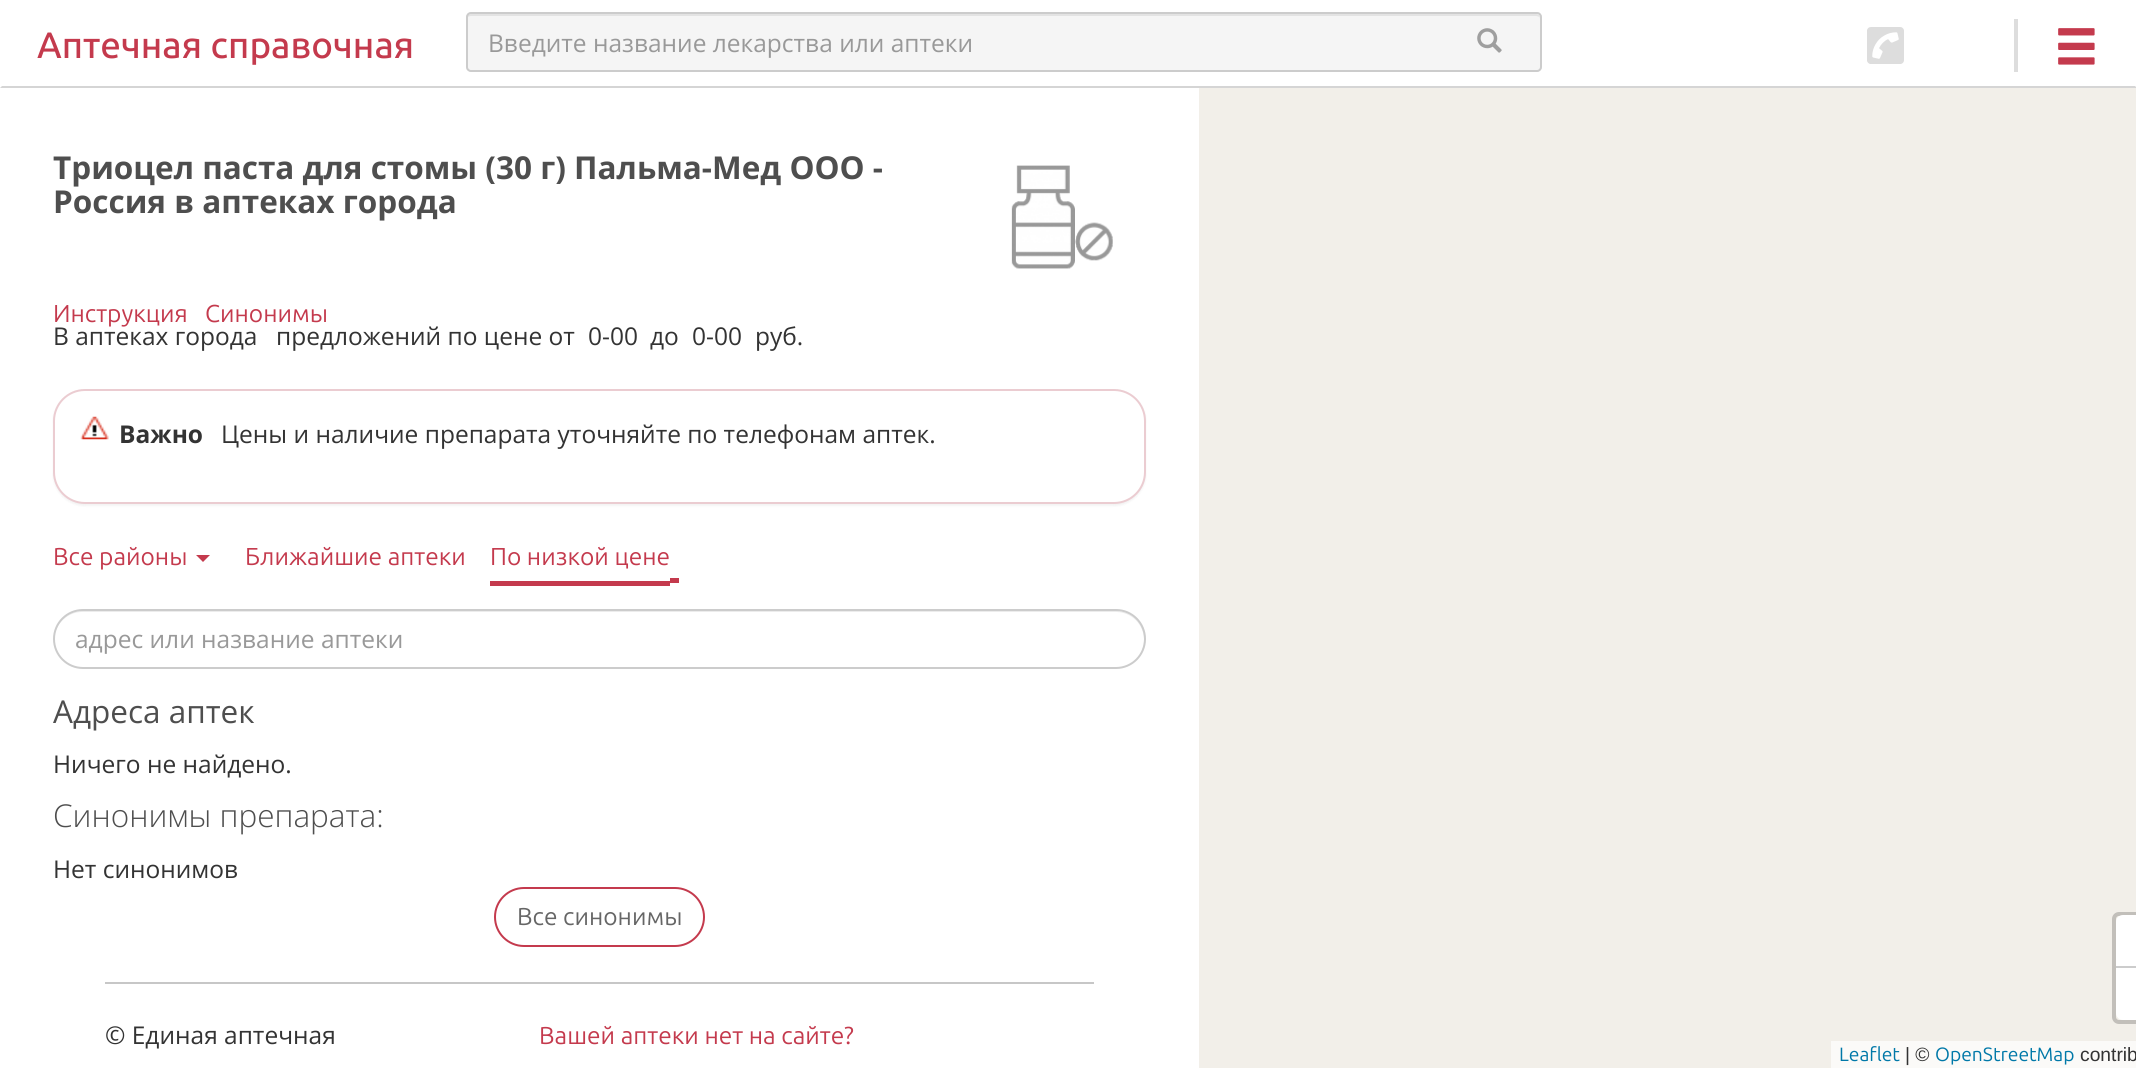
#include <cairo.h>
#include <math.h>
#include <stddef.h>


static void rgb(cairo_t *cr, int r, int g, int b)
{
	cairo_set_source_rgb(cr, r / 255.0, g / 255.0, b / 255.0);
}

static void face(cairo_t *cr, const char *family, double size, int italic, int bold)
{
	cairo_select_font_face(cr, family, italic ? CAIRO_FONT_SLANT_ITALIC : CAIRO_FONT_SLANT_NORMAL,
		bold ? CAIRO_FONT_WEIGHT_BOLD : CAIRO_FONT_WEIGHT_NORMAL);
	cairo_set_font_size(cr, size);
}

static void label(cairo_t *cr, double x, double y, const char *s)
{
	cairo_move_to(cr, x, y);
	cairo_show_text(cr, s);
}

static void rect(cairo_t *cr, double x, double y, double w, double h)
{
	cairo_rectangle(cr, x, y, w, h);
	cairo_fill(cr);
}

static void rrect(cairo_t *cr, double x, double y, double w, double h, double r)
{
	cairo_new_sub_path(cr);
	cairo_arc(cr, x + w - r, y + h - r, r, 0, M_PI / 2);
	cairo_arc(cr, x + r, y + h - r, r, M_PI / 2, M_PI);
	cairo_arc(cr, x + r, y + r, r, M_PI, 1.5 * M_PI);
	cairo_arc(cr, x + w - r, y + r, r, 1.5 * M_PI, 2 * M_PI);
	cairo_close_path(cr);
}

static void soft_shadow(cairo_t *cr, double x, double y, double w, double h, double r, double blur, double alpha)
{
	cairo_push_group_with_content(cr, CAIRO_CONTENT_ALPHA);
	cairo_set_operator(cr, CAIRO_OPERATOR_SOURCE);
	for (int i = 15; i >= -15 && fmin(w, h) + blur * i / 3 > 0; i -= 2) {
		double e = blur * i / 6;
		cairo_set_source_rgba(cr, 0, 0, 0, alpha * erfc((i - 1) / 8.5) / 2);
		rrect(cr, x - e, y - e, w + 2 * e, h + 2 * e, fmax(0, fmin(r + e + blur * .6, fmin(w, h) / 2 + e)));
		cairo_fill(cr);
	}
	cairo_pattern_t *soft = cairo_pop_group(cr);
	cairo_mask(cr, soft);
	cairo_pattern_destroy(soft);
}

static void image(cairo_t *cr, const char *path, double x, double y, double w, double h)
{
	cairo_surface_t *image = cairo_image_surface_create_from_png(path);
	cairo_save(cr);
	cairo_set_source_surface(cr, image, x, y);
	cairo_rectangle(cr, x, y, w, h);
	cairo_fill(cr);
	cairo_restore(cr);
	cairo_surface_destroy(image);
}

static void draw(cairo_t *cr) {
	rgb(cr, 255, 255, 255);
	cairo_paint(cr);
	rgb(cr, 213, 213, 213);
	cairo_new_path(cr);
	cairo_move_to(cr, 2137, 88);
	cairo_line_to(cr, 0, 88);
	cairo_line_to(cr, 2, 86);
	cairo_line_to(cr, 2135, 86);
	cairo_close_path(cr);
	cairo_fill(cr);
	face(cr, "Ubuntu Medium", 36.75, 0, 0);
	rgb(cr, 196, 58, 77);
	label(cr, 37, 58, "Аптечная справочная");
	rgb(cr, 245, 245, 245);
	rrect(cr, 466, 12, 1076, 60, 5);
	cairo_fill(cr);
	rgb(cr, 227, 227, 227);
	cairo_new_path(cr);
	cairo_move_to(cr, 471, 16);
	cairo_line_to(cr, 1536, 16);
	cairo_curve_to(cr, 1538, 16, 1540, 17, 1540, 19);
	cairo_curve_to(cr, 1540, 16, 1539, 14, 1536, 14);
	cairo_line_to(cr, 471, 14);
	cairo_curve_to(cr, 468, 14, 467, 16, 467, 19);
	cairo_curve_to(cr, 467, 17, 469, 16, 471, 16);
	cairo_close_path(cr);
	cairo_fill(cr);
	rrect(cr, 467, 13, 1074, 58, 4);
	rgb(cr, 204, 204, 204);
	cairo_stroke(cr);
	face(cr, "Open Sans", 24.5, 0, 0);
	rgb(cr, 153, 153, 153);
	label(cr, 488, 52, "Введите название лекарства или аптеки");
	image(cr, "image0.png", 1477, 28, 25, 25);
	image(cr, "image1.png", 1867, 27, 37, 37);
	rgb(cr, 221, 221, 221);
	rect(cr, 2014, 19, 4, 53);
	image(cr, "image2.png", 2058, 28, 37, 37);
	face(cr, "Open Sans", 31.5, 0, 1);
	rgb(cr, 78, 78, 78);
	label(cr, 53, 179, "Триоцел паста для стомы (30 г) Пальма-Мед ООО -");
	label(cr, 53, 213, "Россия в аптеках города");
	image(cr, "image3.png", 1011, 165, 102, 104);
	face(cr, "Ubuntu", 24.5, 0, 0);
	rgb(cr, 196, 58, 77);
	label(cr, 53, 322, "Инструкция");
	label(cr, 205, 322, "Синонимы");
	face(cr, "Open Sans", 24.5, 0, 0);
	rgb(cr, 51, 51, 51);
	label(cr, 53, 345, "В аптеках города");
	label(cr, 276, 345, "предложений по цене от");
	label(cr, 588, 345, "0-00");
	label(cr, 650, 345, "до");
	label(cr, 692, 345, "0-00");
	label(cr, 755, 345, "руб.");
	rgb(cr, 0, 0, 0);
	soft_shadow(cr, 53, 390, 1093, 116, 32, 1, 0.05);
	rgb(cr, 255, 255, 255);
	rrect(cr, 54, 390, 1091, 113, 31);
	cairo_fill_preserve(cr);
	rgb(cr, 235, 204, 209);
	cairo_stroke(cr);
	image(cr, "image4.png", 80, 416, 29, 24);
	face(cr, "Open Sans", 24.5, 0, 1);
	rgb(cr, 51, 51, 51);
	label(cr, 119, 443, "Важно");
	face(cr, "Open Sans", 24.5, 0, 0);
	label(cr, 221, 443, "Цены и наличие препарата уточняйте по телефонам аптек.");
	face(cr, "Ubuntu", 24.5, 0, 0);
	rgb(cr, 196, 58, 77);
	label(cr, 53, 565, "Все районы");
	cairo_new_path(cr);
	cairo_move_to(cr, 196, 555);
	cairo_line_to(cr, 210, 555);
	cairo_line_to(cr, 203, 562);
	cairo_close_path(cr);
	cairo_fill(cr);
	label(cr, 245, 565, "Ближайшие аптеки");
	label(cr, 490, 565, "По низкой цене");
	rect(cr, 490, 581, 180, 5);
	rect(cr, 670, 578, 9, 5);
	rgb(cr, 236, 236, 236);
	cairo_new_path(cr);
	cairo_move_to(cr, 82, 612);
	cairo_line_to(cr, 1116, 612);
	cairo_curve_to(cr, 1132, 612, 1144, 625, 1144, 640);
	cairo_curve_to(cr, 1144, 646, 1142, 651, 1140, 656);
	cairo_curve_to(cr, 1143, 651, 1145, 645, 1145, 639);
	cairo_curve_to(cr, 1145, 624, 1132, 611, 1117, 611);
	cairo_line_to(cr, 82, 611);
	cairo_curve_to(cr, 67, 611, 54, 624, 54, 639);
	cairo_line_to(cr, 54, 640);
	cairo_curve_to(cr, 54, 625, 67, 612, 82, 612);
	cairo_close_path(cr);
	cairo_fill(cr);
	rrect(cr, 54, 610, 1091, 58, 29);
	rgb(cr, 204, 204, 204);
	cairo_stroke(cr);
	face(cr, "Open Sans", 24.5, 0, 0);
	rgb(cr, 153, 153, 153);
	label(cr, 75, 648, "адрес или название аптеки");
	face(cr, "Open Sans", 31.5, 0, 0);
	rgb(cr, 78, 78, 78);
	label(cr, 53, 723, "Адреса аптек");
	face(cr, "Open Sans", 24.5, 0, 0);
	rgb(cr, 51, 51, 51);
	label(cr, 53, 773, "Ничего не найдено.");
	face(cr, "Open Sans Light", 31.5, 0, 0);
	rgb(cr, 78, 78, 78);
	label(cr, 53, 827, "Синонимы препарата:");
	face(cr, "Open Sans", 24.5, 0, 0);
	rgb(cr, 51, 51, 51);
	label(cr, 53, 878, "Нет синонимов");
	rrect(cr, 495, 888, 209, 58, 29);
	rgb(cr, 196, 58, 77);
	cairo_stroke(cr);
	face(cr, "Ubuntu", 24.5, 0, 0);
	rgb(cr, 102, 102, 102);
	label(cr, 517, 925, "Все синонимы");
	rgb(cr, 199, 199, 199);
	rect(cr, 105, 982, 989, 2);
	face(cr, "Open Sans", 24.5, 0, 0);
	rgb(cr, 51, 51, 51);
	label(cr, 105, 1044, "© Единая аптечная");
	face(cr, "Ubuntu", 24.5, 0, 0);
	rgb(cr, 196, 58, 77);
	label(cr, 539, 1044, "Вашей аптеки нет на сайте?");
	rgb(cr, 242, 239, 233);
	rect(cr, 1199, 88, 329, 980);
	rect(cr, 1528, 88, 448, 980);
	rect(cr, 1976, 88, 160, 953);
	rrect(cr, 2114, 914, 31, 108, 5);
	rgb(cr, 194, 191, 186);
	cairo_set_line_width(cr, 4);
	cairo_stroke(cr);
	rgb(cr, 255, 255, 255);
	cairo_new_path(cr);
	cairo_move_to(cr, 2123, 915);
	cairo_line_to(cr, 2136, 915);
	cairo_curve_to(cr, 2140, 915, 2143, 918, 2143, 922);
	cairo_line_to(cr, 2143, 968);
	cairo_line_to(cr, 2116, 968);
	cairo_line_to(cr, 2116, 922);
	cairo_curve_to(cr, 2116, 918, 2119, 915, 2123, 915);
	cairo_close_path(cr);
	cairo_fill(cr);
	rgb(cr, 204, 204, 204);
	rect(cr, 2116, 966, 20, 2);
	rgb(cr, 255, 255, 255);
	cairo_new_path(cr);
	cairo_move_to(cr, 2116, 968);
	cairo_line_to(cr, 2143, 968);
	cairo_line_to(cr, 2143, 1013);
	cairo_curve_to(cr, 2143, 1017, 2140, 1020, 2136, 1020);
	cairo_line_to(cr, 2123, 1020);
	cairo_curve_to(cr, 2119, 1020, 2116, 1017, 2116, 1013);
	cairo_close_path(cr);
	cairo_fill(cr);
	rgb(cr, 251, 250, 248);
	rect(cr, 1831, 1041, 305, 27);
	face(cr, "Ubuntu", 19.25, 0, 0);
	rgb(cr, 0, 120, 168);
	label(cr, 1839, 1061, "Leaflet");
	face(cr, "Liberation Sans", 19.25, 0, 0);
	rgb(cr, 51, 51, 51);
	label(cr, 1905, 1061, "| ©");
	face(cr, "Ubuntu", 19.25, 0, 0);
	rgb(cr, 0, 120, 168);
	label(cr, 1935, 1061, "OpenStreetMap");
	face(cr, "Liberation Sans", 19.25, 0, 0);
	rgb(cr, 51, 51, 51);
	label(cr, 2080, 1061, "contrib");
}

int main(void) {
	cairo_surface_t *surface = cairo_image_surface_create(CAIRO_FORMAT_RGB24, 2136, 1068);
	cairo_t *cr = cairo_create(surface);
	cairo_font_options_t *options = cairo_font_options_create();
	cairo_font_options_set_hint_metrics(options, CAIRO_HINT_METRICS_OFF);
	cairo_font_options_set_hint_style(options, CAIRO_HINT_STYLE_NONE);
	cairo_set_font_options(cr, options);
	cairo_set_miter_limit(cr, 4);
	draw(cr);
	cairo_surface_write_to_png(surface, "render.png");
	cairo_font_options_destroy(options);
	cairo_destroy(cr);
	cairo_surface_destroy(surface);
	return 0;
}
